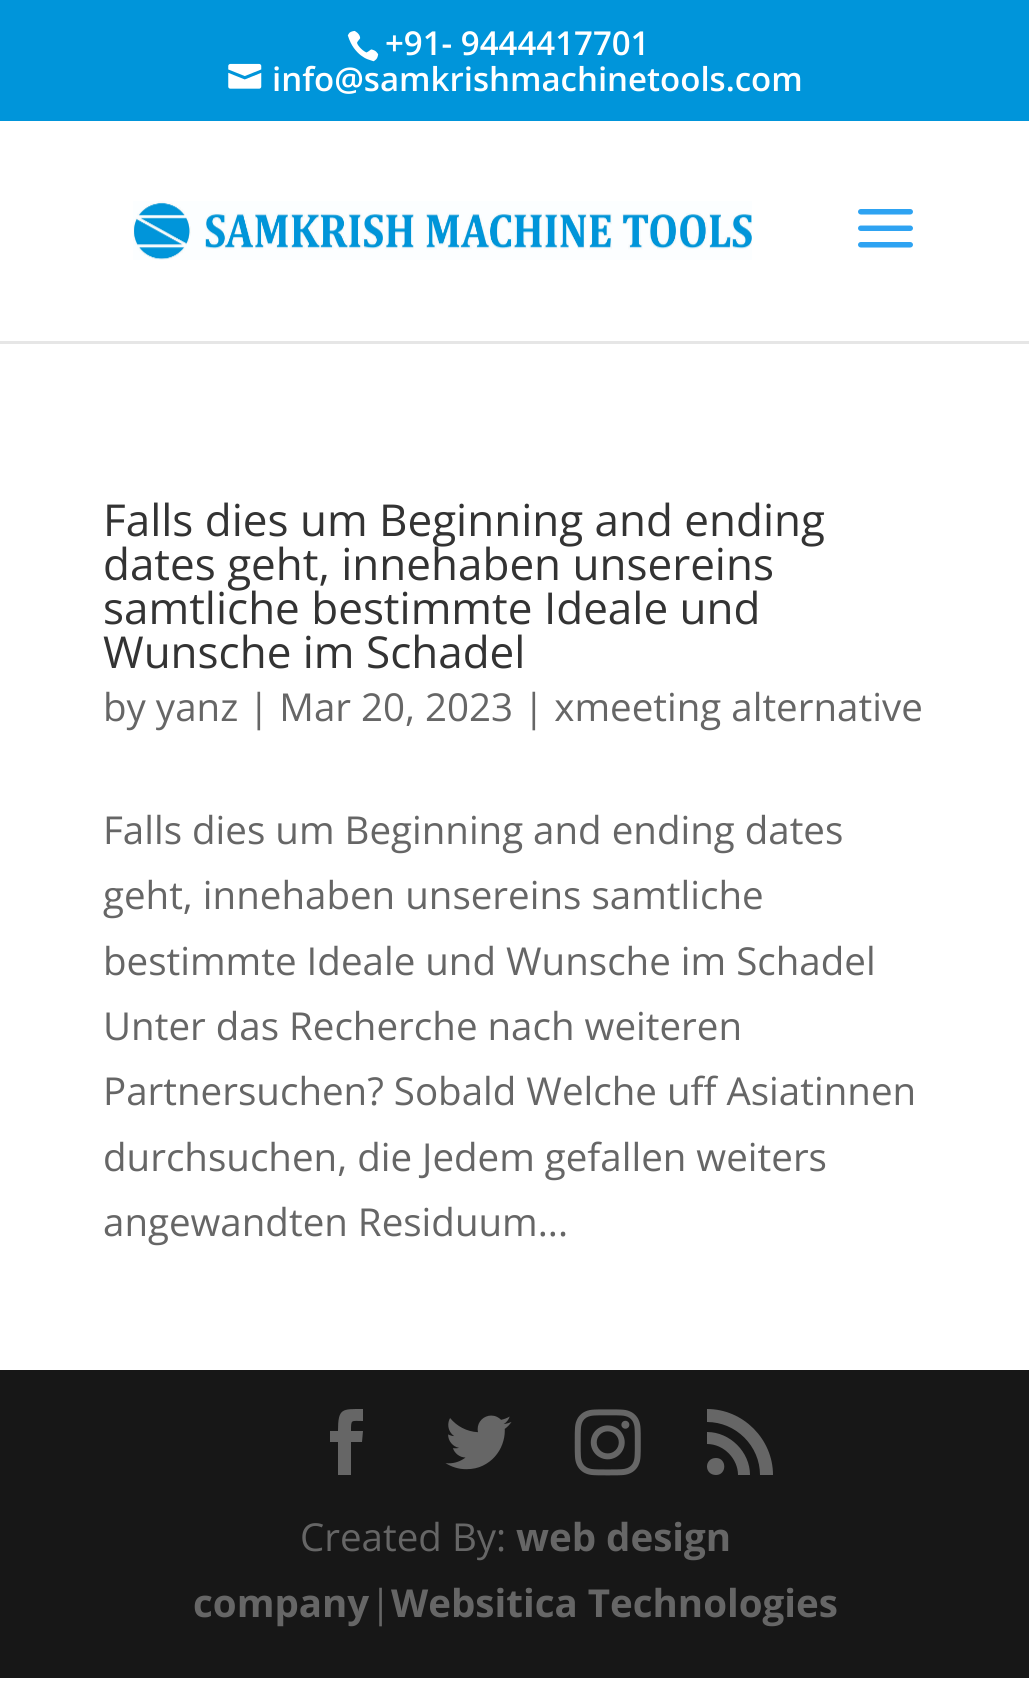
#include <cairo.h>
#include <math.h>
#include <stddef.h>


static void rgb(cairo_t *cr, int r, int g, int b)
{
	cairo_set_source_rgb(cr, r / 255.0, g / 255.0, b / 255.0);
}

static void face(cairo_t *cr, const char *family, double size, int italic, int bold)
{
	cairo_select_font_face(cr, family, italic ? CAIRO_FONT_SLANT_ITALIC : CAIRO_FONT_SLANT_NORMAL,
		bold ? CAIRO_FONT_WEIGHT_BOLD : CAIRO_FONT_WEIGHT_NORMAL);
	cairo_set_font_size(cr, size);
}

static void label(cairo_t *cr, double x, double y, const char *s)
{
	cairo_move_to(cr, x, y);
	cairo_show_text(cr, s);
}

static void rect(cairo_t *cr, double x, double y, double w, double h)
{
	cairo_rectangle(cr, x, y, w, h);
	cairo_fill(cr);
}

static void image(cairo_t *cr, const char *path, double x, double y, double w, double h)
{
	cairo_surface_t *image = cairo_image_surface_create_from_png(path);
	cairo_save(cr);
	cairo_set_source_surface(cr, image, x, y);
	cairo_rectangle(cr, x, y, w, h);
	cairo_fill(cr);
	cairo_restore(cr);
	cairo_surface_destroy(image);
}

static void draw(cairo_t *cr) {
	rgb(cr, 255, 255, 255);
	cairo_paint(cr);
	rgb(cr, 0, 149, 218);
	rect(cr, 0, 0, 1029, 121);
	image(cr, "image0.png", 347, 30, 32, 32);
	face(cr, "Open Sans SemiBold", 33, 0, 0);
	rgb(cr, 255, 255, 255);
	label(cr, 385, 55, "+91- 9444417701");
	image(cr, "image1.png", 228, 63, 34, 26);
	label(cr, 272, 91, "info@samkrishmachinetools.com");
	rgb(cr, 230, 230, 230);
	rect(cr, 0, 341, 1029, 3);
	image(cr, "image2.png", 133, 201, 619, 59);
	image(cr, "image3.png", 858, 209, 55, 39);
	face(cr, "Open Sans", 44, 0, 0);
	rgb(cr, 51, 51, 51);
	label(cr, 103, 536, "Falls dies um Beginning and ending");
	label(cr, 103, 580, "dates geht, innehaben unsereins");
	label(cr, 103, 624, "samtliche bestimmte Ideale und");
	label(cr, 103, 668, "Wunsche im Schadel");
	face(cr, "Open Sans", 38.5, 0, 0);
	rgb(cr, 102, 102, 102);
	label(cr, 103, 721, "by yanz | Mar 20, 2023 | xmeeting alternative");
	label(cr, 103, 844, "Falls dies um Beginning and ending dates");
	label(cr, 103, 909, "geht, innehaben unsereins samtliche");
	label(cr, 103, 975, "bestimmte Ideale und Wunsche im Schadel");
	label(cr, 103, 1040, "Unter das Recherche nach weiteren");
	label(cr, 103, 1105, "Partnersuchen? Sobald Welche uff Asiatinnen");
	label(cr, 103, 1171, "durchsuchen, die Jedem gefallen weiters");
	label(cr, 103, 1236, "angewandten Residuum...");
	rgb(cr, 23, 23, 23);
	rect(cr, 0, 1370, 1029, 308);
	rgb(cr, 102, 102, 102);
	cairo_new_path(cr);
	cairo_move_to(cr, 338, 1475);
	cairo_line_to(cr, 351, 1475);
	cairo_line_to(cr, 351, 1442);
	cairo_line_to(cr, 362, 1442);
	cairo_line_to(cr, 363, 1431);
	cairo_line_to(cr, 351, 1431);
	cairo_curve_to(cr, 351, 1419, 351, 1421, 363, 1421);
	cairo_line_to(cr, 363, 1409);
	cairo_curve_to(cr, 342, 1409, 338, 1408, 338, 1431);
	cairo_line_to(cr, 330, 1431);
	cairo_line_to(cr, 330, 1442);
	cairo_line_to(cr, 338, 1442);
	cairo_close_path(cr);
	cairo_fill(cr);
	image(cr, "image4.png", 445, 1415, 67, 55);
	image(cr, "image5.png", 574, 1409, 67, 67);
	cairo_new_path(cr);
	cairo_move_to(cr, 707, 1409);
	cairo_line_to(cr, 707, 1422);
	cairo_curve_to(cr, 736, 1422, 760, 1446, 760, 1475);
	cairo_line_to(cr, 773, 1475);
	cairo_curve_to(cr, 773, 1439, 743, 1409, 707, 1409);
	cairo_close_path(cr);
	cairo_move_to(cr, 738, 1475);
	cairo_line_to(cr, 750, 1475);
	cairo_curve_to(cr, 750, 1452, 730, 1432, 707, 1432);
	cairo_line_to(cr, 707, 1444);
	cairo_curve_to(cr, 724, 1444, 738, 1459, 738, 1475);
	cairo_close_path(cr);
	cairo_move_to(cr, 716, 1475);
	cairo_curve_to(cr, 727, 1475, 727, 1458, 716, 1458);
	cairo_curve_to(cr, 704, 1458, 704, 1475, 716, 1475);
	cairo_close_path(cr);
	cairo_fill(cr);
	label(cr, 300, 1551, "Created By:");
	face(cr, "Open Sans", 38.5, 0, 1);
	label(cr, 516, 1551, "web design");
	label(cr, 193, 1617, "company");
	face(cr, "Open Sans", 38.5, 0, 0);
	label(cr, 370, 1617, "|");
	face(cr, "Open Sans", 38.5, 0, 1);
	label(cr, 391, 1617, "Websitica Technologies");
}

int main(void) {
	cairo_surface_t *surface = cairo_image_surface_create(CAIRO_FORMAT_RGB24, 1029, 1704);
	cairo_t *cr = cairo_create(surface);
	cairo_font_options_t *options = cairo_font_options_create();
	cairo_font_options_set_hint_metrics(options, CAIRO_HINT_METRICS_OFF);
	cairo_font_options_set_hint_style(options, CAIRO_HINT_STYLE_NONE);
	cairo_set_font_options(cr, options);
	cairo_set_miter_limit(cr, 4);
	draw(cr);
	cairo_surface_write_to_png(surface, "render.png");
	cairo_font_options_destroy(options);
	cairo_destroy(cr);
	cairo_surface_destroy(surface);
	return 0;
}
